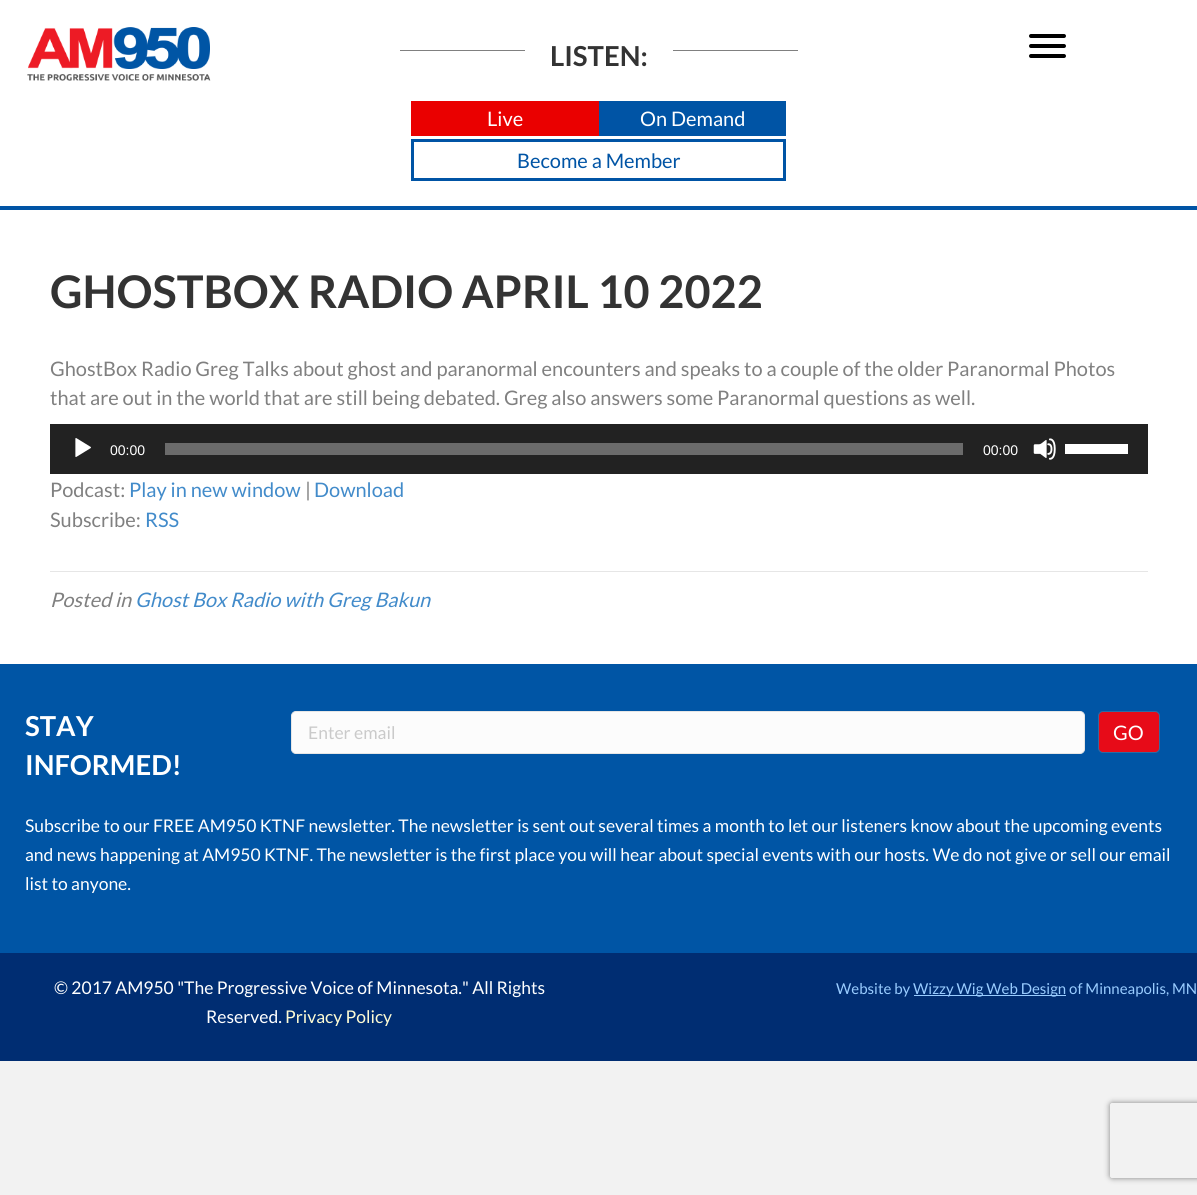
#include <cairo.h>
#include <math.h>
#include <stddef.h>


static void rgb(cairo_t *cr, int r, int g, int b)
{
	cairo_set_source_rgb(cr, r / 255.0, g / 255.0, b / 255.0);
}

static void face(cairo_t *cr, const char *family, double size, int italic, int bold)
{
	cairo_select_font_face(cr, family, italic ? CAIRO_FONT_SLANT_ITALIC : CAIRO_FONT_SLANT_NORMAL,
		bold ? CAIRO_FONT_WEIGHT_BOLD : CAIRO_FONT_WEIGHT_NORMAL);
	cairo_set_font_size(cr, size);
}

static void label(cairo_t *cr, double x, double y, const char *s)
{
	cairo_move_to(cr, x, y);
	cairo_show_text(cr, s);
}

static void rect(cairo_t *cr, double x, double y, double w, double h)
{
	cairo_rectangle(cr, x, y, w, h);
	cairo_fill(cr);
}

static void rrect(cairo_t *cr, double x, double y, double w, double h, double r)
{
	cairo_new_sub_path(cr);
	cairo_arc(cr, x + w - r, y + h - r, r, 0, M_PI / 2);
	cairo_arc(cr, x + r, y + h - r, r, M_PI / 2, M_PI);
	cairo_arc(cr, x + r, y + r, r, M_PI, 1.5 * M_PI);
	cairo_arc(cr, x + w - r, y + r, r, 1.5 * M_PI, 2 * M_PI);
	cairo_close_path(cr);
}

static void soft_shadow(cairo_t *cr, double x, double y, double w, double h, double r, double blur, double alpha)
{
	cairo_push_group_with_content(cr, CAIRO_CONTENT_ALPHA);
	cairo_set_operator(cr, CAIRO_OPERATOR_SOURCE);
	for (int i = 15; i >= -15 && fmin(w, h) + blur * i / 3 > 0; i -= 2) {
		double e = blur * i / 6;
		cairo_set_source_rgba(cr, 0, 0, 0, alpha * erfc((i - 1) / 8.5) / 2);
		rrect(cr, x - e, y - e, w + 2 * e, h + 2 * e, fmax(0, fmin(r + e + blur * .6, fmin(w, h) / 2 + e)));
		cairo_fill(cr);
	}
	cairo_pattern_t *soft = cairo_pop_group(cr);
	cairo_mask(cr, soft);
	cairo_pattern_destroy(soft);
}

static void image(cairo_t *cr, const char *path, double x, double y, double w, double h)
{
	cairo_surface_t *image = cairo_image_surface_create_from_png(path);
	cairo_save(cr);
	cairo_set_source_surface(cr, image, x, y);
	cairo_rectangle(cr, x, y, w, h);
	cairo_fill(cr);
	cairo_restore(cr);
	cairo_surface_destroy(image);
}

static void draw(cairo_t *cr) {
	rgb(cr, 242, 242, 242);
	cairo_paint(cr);
	rgb(cr, 255, 255, 255);
	rect(cr, 0, 0, 1197, 206);
	rgb(cr, 0, 84, 165);
	rect(cr, 0, 206, 1197, 4);
	image(cr, "image0.png", 27, 27, 184, 54);
	rgb(cr, 128, 128, 128);
	rect(cr, 400, 50, 125, 1);
	face(cr, "Lato", 27.5, 0, 1);
	rgb(cr, 51, 51, 51);
	label(cr, 550, 66, "LISTEN:");
	rgb(cr, 128, 128, 128);
	rect(cr, 673, 50, 125, 1);
	rgb(cr, 234, 0, 0);
	rect(cr, 411, 101, 188, 35);
	face(cr, "Lato", 20, 0, 0);
	rgb(cr, 255, 255, 255);
	label(cr, 487, 126, "Live");
	rgb(cr, 0, 84, 165);
	rect(cr, 599, 101, 187, 35);
	rgb(cr, 255, 255, 255);
	label(cr, 640, 126, "On Demand");
	cairo_rectangle(cr, 412.5, 140.5, 372, 39);
	rgb(cr, 0, 84, 165);
	cairo_set_line_width(cr, 3);
	cairo_stroke(cr);
	label(cr, 517, 168, "Become a Member");
	rgb(cr, 0, 0, 0);
	rrect(cr, 1029, 44, 37, 4, 2);
	cairo_fill(cr);
	rrect(cr, 1029, 34, 37, 4, 2);
	cairo_fill(cr);
	rrect(cr, 1029, 54, 37, 4, 2);
	cairo_fill(cr);
	rgb(cr, 255, 255, 255);
	rect(cr, 0, 210, 1197, 454);
	face(cr, "Lato", 45, 0, 1);
	rgb(cr, 51, 51, 51);
	label(cr, 50, 308, "GHOSTBOX RADIO APRIL 10 2022");
	face(cr, "Lato", 20, 0, 0);
	rgb(cr, 128, 128, 128);
	label(cr, 50, 376, "GhostBox Radio Greg Talks about ghost and paranormal encounters and speaks to a couple of the older Paranormal Photos");
	label(cr, 50, 405, "that are out in the world that are still being debated. Greg also answers some Paranormal questions as well.");
	rgb(cr, 34, 34, 34);
	rect(cr, 50, 424, 1098, 50);
	image(cr, "image1.png", 75, 438, 16, 19);
	face(cr, "Liberation Sans", 14, 0, 0);
	rgb(cr, 255, 255, 255);
	label(cr, 110, 455, "00:00");
	rgb(cr, 107, 107, 107);
	rect(cr, 165, 443, 798, 12);
	rgb(cr, 255, 255, 255);
	label(cr, 983, 455, "00:00");
	image(cr, "image2.png", 1033, 438, 23, 22);
	rect(cr, 1065, 444, 63, 10);
	face(cr, "Lato", 20, 0, 0);
	rgb(cr, 128, 128, 128);
	label(cr, 50, 497, "Podcast:");
	rgb(cr, 66, 139, 202);
	label(cr, 129, 497, "Play in new window");
	rgb(cr, 128, 128, 128);
	label(cr, 305, 497, "|");
	rgb(cr, 66, 139, 202);
	label(cr, 314, 497, "Download");
	rgb(cr, 128, 128, 128);
	label(cr, 50, 527, "Subscribe:");
	rgb(cr, 66, 139, 202);
	label(cr, 145, 527, "RSS");
	rgb(cr, 230, 230, 230);
	rect(cr, 50, 571, 1098, 1);
	face(cr, "Lato", 20, 1, 0);
	rgb(cr, 128, 128, 128);
	label(cr, 50, 607, "Posted in");
	rgb(cr, 66, 139, 202);
	label(cr, 135, 607, "Ghost Box Radio with Greg Bakun");
	rgb(cr, 0, 85, 165);
	rect(cr, 0, 664, 1197, 289);
	face(cr, "Lato", 27.5, 0, 1);
	rgb(cr, 255, 255, 255);
	label(cr, 25, 736, "STAY");
	label(cr, 25, 775, "INFORMED!");
	rgb(cr, 252, 252, 252);
	rrect(cr, 291.5, 711.5, 793, 42, 4.5);
	cairo_fill_preserve(cr);
	rgb(cr, 230, 230, 230);
	cairo_set_line_width(cr, 1);
	cairo_stroke(cr);
	face(cr, "Lato", 17.5, 0, 0);
	rgb(cr, 202, 202, 202);
	label(cr, 308, 739, "Enter email");
	rgb(cr, 231, 11, 24);
	rrect(cr, 1098.5, 711.5, 61, 41, 4.5);
	cairo_fill_preserve(cr);
	rgb(cr, 45, 108, 162);
	cairo_stroke(cr);
	face(cr, "Lato", 20, 0, 0);
	rgb(cr, 255, 255, 255);
	label(cr, 1113, 740, "GO");
	cairo_save(cr);
	cairo_set_fill_rule(cr, CAIRO_FILL_RULE_EVEN_ODD);
	cairo_new_path(cr);
	cairo_move_to(cr, 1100, 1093);
	cairo_line_to(cr, 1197, 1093);
	cairo_line_to(cr, 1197, 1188);
	cairo_line_to(cr, 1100, 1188);
	cairo_close_path(cr);
	cairo_move_to(cr, 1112.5, 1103);
	cairo_line_to(cr, 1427.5, 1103);
	cairo_curve_to(cr, 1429, 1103, 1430, 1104, 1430, 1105.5);
	cairo_line_to(cr, 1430, 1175.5);
	cairo_curve_to(cr, 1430, 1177, 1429, 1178, 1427.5, 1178);
	cairo_line_to(cr, 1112.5, 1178);
	cairo_curve_to(cr, 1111, 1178, 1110, 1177, 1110, 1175.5);
	cairo_line_to(cr, 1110, 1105.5);
	cairo_curve_to(cr, 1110, 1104, 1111, 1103, 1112.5, 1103);
	cairo_close_path(cr);
	cairo_clip(cr);
	rgb(cr, 128, 128, 128);
	soft_shadow(cr, 1110, 1103, 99, 75, 2.5, 3, 1);
	cairo_restore(cr);
	face(cr, "Lato", 17.5, 0, 0);
	label(cr, 25, 832, "Subscribe to our FREE AM950 KTNF newsletter. The newsletter is sent out several times a month to let our listeners know about the upcoming events");
	label(cr, 25, 861, "and news happening at AM950 KTNF. The newsletter is the first place you will hear about special events with our hosts. We do not give or sell our email");
	label(cr, 25, 890, "list to anyone.");
	rgb(cr, 0, 45, 114);
	rect(cr, 0, 953, 1197, 108);
	rgb(cr, 255, 255, 255);
	label(cr, 54, 994, "© 2017 AM950 \"The Progressive Voice of Minnesota.\" All Rights");
	label(cr, 206, 1023, "Reserved.");
	rgb(cr, 255, 252, 211);
	label(cr, 285, 1023, "Privacy Policy");
	face(cr, "Lato", 15, 0, 0);
	rgb(cr, 153, 204, 255);
	label(cr, 836, 994, "Website by");
	rect(cr, 914, 995, 152, 1);
	label(cr, 913, 994, "Wizzy Wig Web Design of Minneapolis, MN");
}

int main(void) {
	cairo_surface_t *surface = cairo_image_surface_create(CAIRO_FORMAT_RGB24, 1197, 1195);
	cairo_t *cr = cairo_create(surface);
	cairo_font_options_t *options = cairo_font_options_create();
	cairo_font_options_set_hint_metrics(options, CAIRO_HINT_METRICS_OFF);
	cairo_font_options_set_hint_style(options, CAIRO_HINT_STYLE_NONE);
	cairo_set_font_options(cr, options);
	cairo_set_miter_limit(cr, 4);
	draw(cr);
	cairo_surface_write_to_png(surface, "render.png");
	cairo_font_options_destroy(options);
	cairo_destroy(cr);
	cairo_surface_destroy(surface);
	return 0;
}
